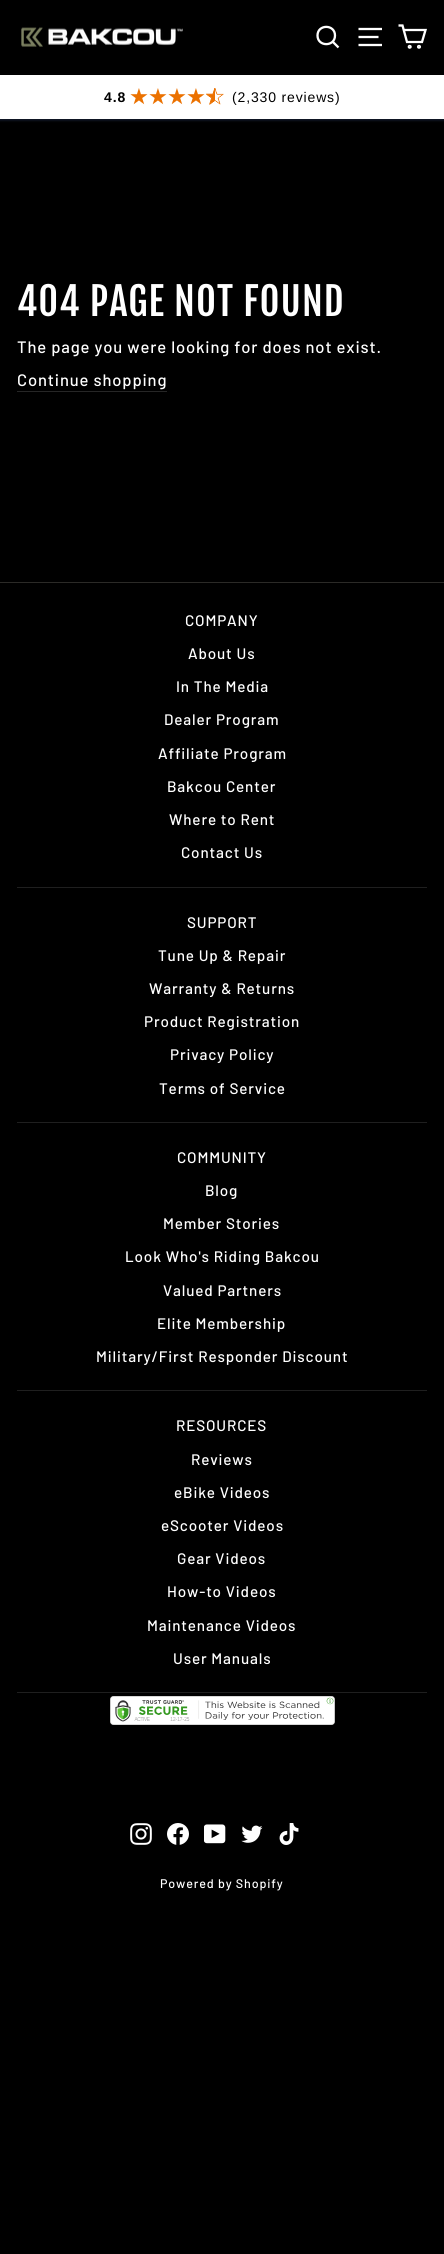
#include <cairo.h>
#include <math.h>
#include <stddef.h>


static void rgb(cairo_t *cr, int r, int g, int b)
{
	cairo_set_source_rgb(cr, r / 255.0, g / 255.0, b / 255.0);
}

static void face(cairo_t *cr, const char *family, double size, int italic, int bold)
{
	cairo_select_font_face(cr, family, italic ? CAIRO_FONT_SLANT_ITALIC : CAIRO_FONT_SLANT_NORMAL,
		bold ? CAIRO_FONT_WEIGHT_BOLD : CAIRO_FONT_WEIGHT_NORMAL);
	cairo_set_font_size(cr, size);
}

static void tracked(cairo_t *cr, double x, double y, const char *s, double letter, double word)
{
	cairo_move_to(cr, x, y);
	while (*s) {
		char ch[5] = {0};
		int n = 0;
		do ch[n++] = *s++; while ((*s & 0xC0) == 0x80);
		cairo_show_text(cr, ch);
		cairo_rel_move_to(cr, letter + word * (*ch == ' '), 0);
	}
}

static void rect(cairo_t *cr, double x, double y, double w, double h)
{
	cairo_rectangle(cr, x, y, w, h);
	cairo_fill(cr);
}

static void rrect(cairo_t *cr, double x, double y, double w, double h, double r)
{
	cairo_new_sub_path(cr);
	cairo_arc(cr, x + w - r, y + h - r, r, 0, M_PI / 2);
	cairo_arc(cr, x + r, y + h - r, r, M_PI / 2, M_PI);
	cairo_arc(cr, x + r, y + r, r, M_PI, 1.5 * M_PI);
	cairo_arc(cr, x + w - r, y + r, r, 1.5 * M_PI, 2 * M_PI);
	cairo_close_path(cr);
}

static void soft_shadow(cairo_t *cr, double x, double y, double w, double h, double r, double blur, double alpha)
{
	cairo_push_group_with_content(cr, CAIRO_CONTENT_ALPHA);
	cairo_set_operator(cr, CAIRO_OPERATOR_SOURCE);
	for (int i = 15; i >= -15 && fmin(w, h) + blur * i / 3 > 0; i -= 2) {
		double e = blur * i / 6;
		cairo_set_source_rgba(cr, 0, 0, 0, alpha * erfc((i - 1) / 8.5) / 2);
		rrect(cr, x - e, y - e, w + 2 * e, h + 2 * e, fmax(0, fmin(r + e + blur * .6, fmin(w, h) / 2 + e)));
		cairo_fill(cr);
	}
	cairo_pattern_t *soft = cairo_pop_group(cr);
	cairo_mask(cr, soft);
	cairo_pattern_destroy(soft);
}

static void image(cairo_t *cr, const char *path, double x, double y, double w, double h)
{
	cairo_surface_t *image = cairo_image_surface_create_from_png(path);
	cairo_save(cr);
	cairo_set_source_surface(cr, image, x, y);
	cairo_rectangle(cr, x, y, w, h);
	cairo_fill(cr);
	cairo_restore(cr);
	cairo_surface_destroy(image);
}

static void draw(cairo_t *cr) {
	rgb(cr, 0, 0, 0);
	cairo_paint(cr);
	rgb(cr, 16, 24, 40);
	soft_shadow(cr, -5, 76, 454, 44, 0, 1.5, 1);
	soft_shadow(cr, -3, 76, 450, 44, 0, 1, 1);
	rgb(cr, 0, 0, 0);
	rect(cr, 0, 74, 444, 1);
	image(cr, "image0.png", 21, 27, 162, 20);
	cairo_new_path(cr);
	cairo_move_to(cr, 335, 35.5);
	cairo_curve_to(cr, 335, 47, 317.5, 47, 317.5, 35.5);
	cairo_curve_to(cr, 317.5, 24, 335, 24, 335, 35.5);
	cairo_close_path(cr);
	cairo_move_to(cr, 338.5, 47.5);
	cairo_line_to(cr, 332.5, 41.5);
	rgb(cr, 255, 255, 255);
	cairo_set_line_width(cr, 2.3);
	cairo_stroke(cr);
	cairo_new_path(cr);
	cairo_move_to(cr, 358.5, 29);
	cairo_line_to(cr, 382, 29);
	cairo_move_to(cr, 358.5, 37);
	cairo_line_to(cr, 378.5, 37);
	cairo_move_to(cr, 358.5, 45);
	cairo_line_to(cr, 382, 45);
	cairo_stroke(cr);
	cairo_new_path(cr);
	cairo_move_to(cr, 403.5, 30);
	cairo_line_to(cr, 425.5, 30);
	cairo_line_to(cr, 422, 42);
	cairo_line_to(cr, 407, 42);
	cairo_line_to(cr, 402.5, 25.5);
	cairo_line_to(cr, 398.5, 25.5);
	cairo_stroke(cr);
	cairo_arc(cr, 409.7, 46.8, 0.9, 0, 2 * M_PI);
	cairo_stroke(cr);
	cairo_arc(cr, 419, 46.8, 0.9, 0, 2 * M_PI);
	cairo_stroke(cr);
	rect(cr, 0, 75, 444, 44);
	face(cr, "Liberation Sans", 14, 0, 1);
	rgb(cr, 0, 0, 0);
	tracked(cr, 104, 102, "4.8", 0.85, 0);
	image(cr, "image1.png", 130, 88, 18, 17);
	image(cr, "image1.png", 149, 88, 18, 17);
	image(cr, "image1.png", 168, 88, 18, 17);
	image(cr, "image1.png", 187, 88, 18, 17);
	image(cr, "image2.png", 206, 88, 18, 17);
	face(cr, "Liberation Sans", 14, 0, 0);
	tracked(cr, 232, 102, "(2,330 reviews)", 0.85, 0);
	face(cr, "Fjalla One", 38.25, 0, 0);
	rgb(cr, 255, 255, 255);
	tracked(cr, 17, 316, "404 PAGE NOT FOUND", 1, 0);
	face(cr, "Barlow Medium", 16.6, 0, 0);
	tracked(cr, 17, 353, "The page you were looking for does not exist.", 0.85, 0);
	rgb(cr, 38, 38, 38);
	rect(cr, 17, 391, 150, 1);
	rgb(cr, 255, 255, 255);
	tracked(cr, 17, 386, "Continue shopping", 0.85, 0);
	rgb(cr, 43, 42, 39);
	rect(cr, 0, 582, 444, 1);
	face(cr, "Barlow Medium", 15.25, 0, 0);
	rgb(cr, 255, 255, 255);
	tracked(cr, 185, 626, "COMPANY", 0.85, 0);
	tracked(cr, 188, 659, "About Us", 0.85, 0);
	tracked(cr, 176, 692, "In The Media", 0.85, 0);
	tracked(cr, 164, 725, "Dealer Program", 0.85, 0);
	tracked(cr, 158, 759, "Affiliate Program", 0.85, 0);
	tracked(cr, 167, 792, "Bakcou Center", 0.85, 0);
	tracked(cr, 169, 825, "Where to Rent", 0.85, 0);
	tracked(cr, 181, 858, "Contact Us", 0.85, 0);
	rgb(cr, 31, 31, 31);
	rect(cr, 17, 887, 410, 1);
	rgb(cr, 255, 255, 255);
	tracked(cr, 187, 928, "SUPPORT", 0.85, 0);
	tracked(cr, 158, 961, "Tune Up & Repair", 0.85, 0);
	tracked(cr, 149, 994, "Warranty & Returns", 0.85, 0);
	tracked(cr, 144, 1027, "Product Registration", 0.85, 0);
	tracked(cr, 170, 1060, "Privacy Policy", 0.85, 0);
	tracked(cr, 159, 1094, "Terms of Service", 0.85, 0);
	rgb(cr, 31, 31, 31);
	rect(cr, 17, 1122, 410, 1);
	rgb(cr, 255, 255, 255);
	tracked(cr, 177, 1163, "COMMUNITY", 0.85, 0);
	tracked(cr, 205, 1196, "Blog", 0.85, 0);
	tracked(cr, 163, 1229, "Member Stories", 0.85, 0);
	tracked(cr, 125, 1262, "Look Who's Riding Bakcou", 0.85, 0);
	tracked(cr, 163, 1296, "Valued Partners", 0.85, 0);
	tracked(cr, 157, 1329, "Elite Membership", 0.85, 0);
	tracked(cr, 96, 1362, "Military/First Responder Discount", 0.85, 0);
	rgb(cr, 31, 31, 31);
	rect(cr, 17, 1390, 410, 1);
	rgb(cr, 255, 255, 255);
	tracked(cr, 176, 1431, "RESOURCES", 0.85, 0);
	tracked(cr, 191, 1465, "Reviews", 0.85, 0);
	tracked(cr, 174, 1498, "eBike Videos", 0.85, 0);
	tracked(cr, 161, 1531, "eScooter Videos", 0.85, 0);
	tracked(cr, 177, 1564, "Gear Videos", 0.85, 0);
	tracked(cr, 167, 1597, "How-to Videos", 0.85, 0);
	tracked(cr, 147, 1631, "Maintenance Videos", 0.85, 0);
	tracked(cr, 173, 1664, "User Manuals", 0.85, 0);
	rgb(cr, 31, 31, 31);
	rect(cr, 17, 1692, 410, 1);
	image(cr, "image3.png", 110, 1696, 225, 29);
	image(cr, "image4.png", 130, 1823, 22, 22);
	image(cr, "image5.png", 167, 1823, 22, 22);
	image(cr, "image6.png", 204, 1824, 22, 20);
	image(cr, "image7.png", 241, 1825, 22, 18);
	image(cr, "image8.png", 279, 1823, 20, 22);
	face(cr, "Barlow Medium", 12.5, 0, 0);
	rgb(cr, 255, 255, 255);
	tracked(cr, 160, 1888, "Powered by Shopify", 0.85, 0);
}

int main(void) {
	cairo_surface_t *surface = cairo_image_surface_create(CAIRO_FORMAT_RGB24, 444, 2254);
	cairo_t *cr = cairo_create(surface);
	cairo_font_options_t *options = cairo_font_options_create();
	cairo_font_options_set_hint_metrics(options, CAIRO_HINT_METRICS_OFF);
	cairo_font_options_set_hint_style(options, CAIRO_HINT_STYLE_NONE);
	cairo_set_font_options(cr, options);
	cairo_set_miter_limit(cr, 4);
	draw(cr);
	cairo_surface_write_to_png(surface, "render.png");
	cairo_font_options_destroy(options);
	cairo_destroy(cr);
	cairo_surface_destroy(surface);
	return 0;
}
